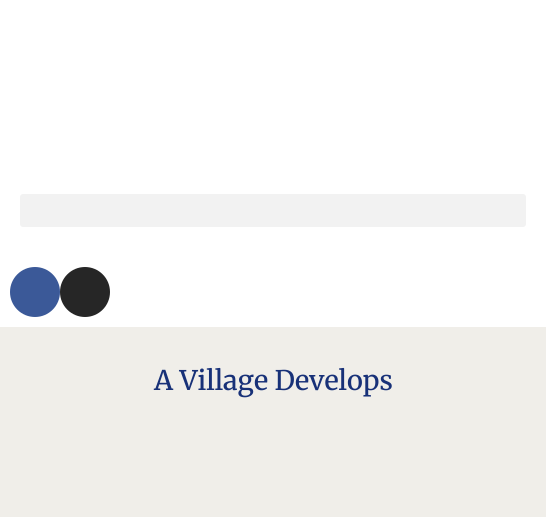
#include <cairo.h>
#include <math.h>
#include <stddef.h>


static void rgb(cairo_t *cr, int r, int g, int b)
{
	cairo_set_source_rgb(cr, r / 255.0, g / 255.0, b / 255.0);
}

static void face(cairo_t *cr, const char *family, double size, int italic, int bold)
{
	cairo_select_font_face(cr, family, italic ? CAIRO_FONT_SLANT_ITALIC : CAIRO_FONT_SLANT_NORMAL,
		bold ? CAIRO_FONT_WEIGHT_BOLD : CAIRO_FONT_WEIGHT_NORMAL);
	cairo_set_font_size(cr, size);
}

static void label(cairo_t *cr, double x, double y, const char *s)
{
	cairo_move_to(cr, x, y);
	cairo_show_text(cr, s);
}

static void rect(cairo_t *cr, double x, double y, double w, double h)
{
	cairo_rectangle(cr, x, y, w, h);
	cairo_fill(cr);
}

static void rrect(cairo_t *cr, double x, double y, double w, double h, double r)
{
	cairo_new_sub_path(cr);
	cairo_arc(cr, x + w - r, y + h - r, r, 0, M_PI / 2);
	cairo_arc(cr, x + r, y + h - r, r, M_PI / 2, M_PI);
	cairo_arc(cr, x + r, y + r, r, M_PI, 1.5 * M_PI);
	cairo_arc(cr, x + w - r, y + r, r, 1.5 * M_PI, 2 * M_PI);
	cairo_close_path(cr);
}

static void draw(cairo_t *cr) {
	rgb(cr, 255, 255, 255);
	cairo_paint(cr);
	rgb(cr, 242, 242, 242);
	rrect(cr, 20, 194, 506, 33, 3);
	cairo_fill(cr);
	rgb(cr, 59, 89, 152);
	cairo_arc(cr, 35, 292, 25, 0, 2 * M_PI);
	cairo_fill(cr);
	rgb(cr, 38, 38, 38);
	cairo_arc(cr, 85, 292, 25, 0, 2 * M_PI);
	cairo_fill(cr);
	rgb(cr, 240, 238, 233);
	rect(cr, 0, 327, 546, 190);
	face(cr, "Merriweather Medium", 27, 0, 0);
	rgb(cr, 24, 49, 120);
	label(cr, 154, 390, "A Village Develops");
}

int main(void) {
	cairo_surface_t *surface = cairo_image_surface_create(CAIRO_FORMAT_RGB24, 546, 517);
	cairo_t *cr = cairo_create(surface);
	cairo_font_options_t *options = cairo_font_options_create();
	cairo_font_options_set_hint_metrics(options, CAIRO_HINT_METRICS_OFF);
	cairo_font_options_set_hint_style(options, CAIRO_HINT_STYLE_NONE);
	cairo_set_font_options(cr, options);
	cairo_set_miter_limit(cr, 4);
	draw(cr);
	cairo_surface_write_to_png(surface, "render.png");
	cairo_font_options_destroy(options);
	cairo_destroy(cr);
	cairo_surface_destroy(surface);
	return 0;
}
